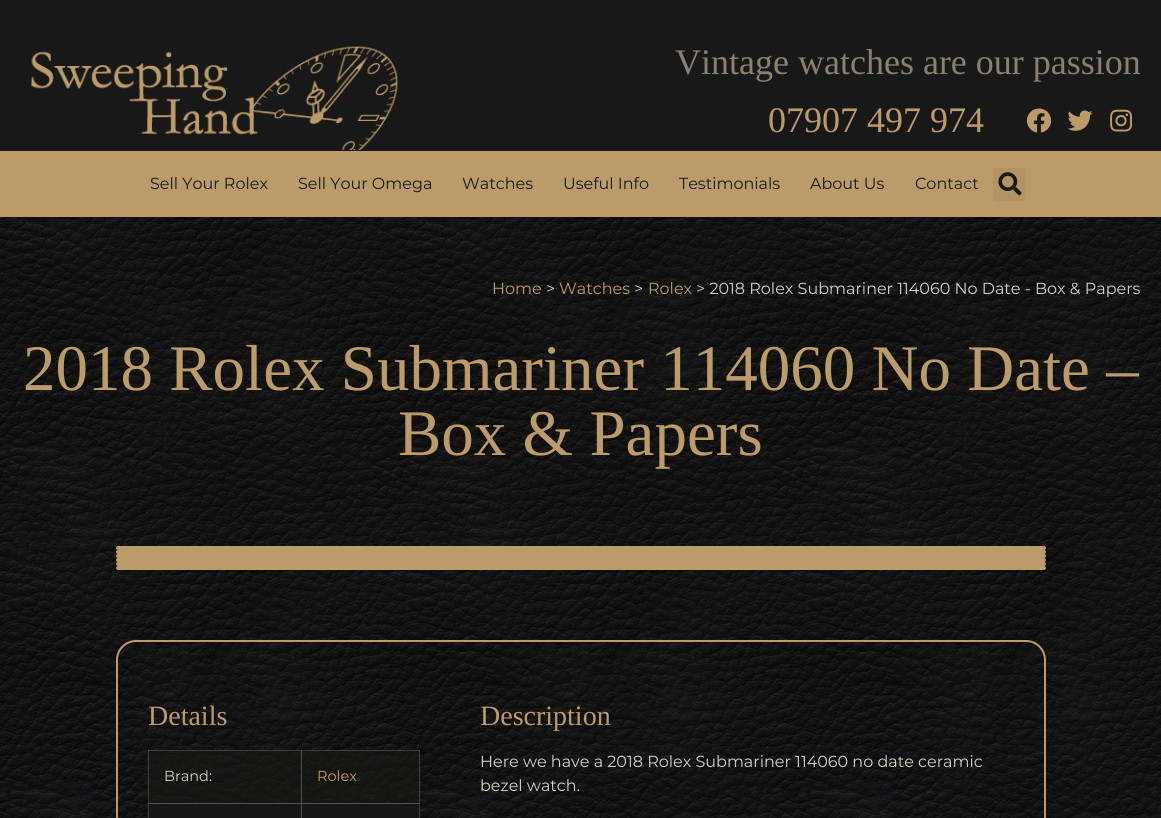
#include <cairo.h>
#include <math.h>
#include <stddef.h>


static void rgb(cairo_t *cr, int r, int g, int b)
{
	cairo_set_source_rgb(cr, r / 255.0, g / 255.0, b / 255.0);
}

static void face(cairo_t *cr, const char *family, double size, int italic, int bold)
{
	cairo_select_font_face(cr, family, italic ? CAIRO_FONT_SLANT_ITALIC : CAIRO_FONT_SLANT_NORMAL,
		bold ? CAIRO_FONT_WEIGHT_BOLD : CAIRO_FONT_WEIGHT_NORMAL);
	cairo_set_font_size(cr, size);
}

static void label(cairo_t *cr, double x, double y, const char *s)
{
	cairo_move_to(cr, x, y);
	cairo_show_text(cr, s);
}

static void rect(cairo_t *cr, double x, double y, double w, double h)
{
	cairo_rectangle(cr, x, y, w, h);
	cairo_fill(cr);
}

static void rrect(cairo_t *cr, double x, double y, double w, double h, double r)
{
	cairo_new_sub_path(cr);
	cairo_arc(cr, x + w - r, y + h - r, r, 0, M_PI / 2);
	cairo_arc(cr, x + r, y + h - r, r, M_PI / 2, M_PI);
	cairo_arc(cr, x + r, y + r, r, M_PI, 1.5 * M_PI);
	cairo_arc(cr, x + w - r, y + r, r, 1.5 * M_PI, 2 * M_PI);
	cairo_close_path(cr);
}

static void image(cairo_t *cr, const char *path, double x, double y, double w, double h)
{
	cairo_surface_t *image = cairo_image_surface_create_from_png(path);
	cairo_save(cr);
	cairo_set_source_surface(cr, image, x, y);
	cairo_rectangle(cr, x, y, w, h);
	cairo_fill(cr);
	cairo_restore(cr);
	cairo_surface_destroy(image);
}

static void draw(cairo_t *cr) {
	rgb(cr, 255, 255, 255);
	cairo_paint(cr);
	image(cr, "image0.png", 0, 217, 1161, 601);
	rgb(cr, 24, 24, 24);
	rect(cr, 0, 0, 1161, 151);
	image(cr, "image1.png", 30, 46, 368, 104);
	face(cr, "Liberation Serif", 36, 0, 0);
	rgb(cr, 138, 128, 112);
	label(cr, 675, 74, "Vintage watches are our passion");
	rgb(cr, 188, 155, 106);
	label(cr, 768, 132, "07907 497 974");
	image(cr, "image2.png", 1026, 108, 26, 25);
	image(cr, "image3.png", 1067, 110, 26, 21);
	image(cr, "image4.png", 1110, 109, 22, 23);
	rect(cr, 0, 151, 1161, 66);
	face(cr, "Montserrat", 16, 0, 0);
	rgb(cr, 24, 24, 24);
	label(cr, 150, 189, "Sell Your Rolex");
	label(cr, 298, 189, "Sell Your Omega");
	label(cr, 462, 189, "Watches");
	label(cr, 563, 189, "Useful Info");
	label(cr, 679, 189, "Testimonials");
	label(cr, 810, 189, "About Us");
	label(cr, 915, 189, "Contact");
	rgb(cr, 179, 147, 101);
	rrect(cr, 993, 168, 33, 33, 3);
	cairo_fill(cr);
	image(cr, "image5.png", 998, 172, 24, 24);
	rgb(cr, 188, 155, 106);
	label(cr, 492, 294, "Home");
	rgb(cr, 211, 210, 201);
	label(cr, 546, 294, ">");
	rgb(cr, 188, 155, 106);
	label(cr, 559, 294, "Watches");
	rgb(cr, 211, 210, 201);
	label(cr, 634, 294, ">");
	rgb(cr, 188, 155, 106);
	label(cr, 648, 294, "Rolex");
	rgb(cr, 211, 210, 201);
	label(cr, 696, 294, "> 2018 Rolex Submariner 114060 No Date - Box & Papers");
	face(cr, "Liberation Serif", 65, 0, 0);
	rgb(cr, 188, 155, 106);
	label(cr, 23, 390, "2018 Rolex Submariner 114060 No Date –");
	label(cr, 398, 455, "Box & Papers");
	rrect(cr, 116, 546, 930, 4, 2);
	cairo_fill(cr);
	rrect(cr, 116, 550, 930, 4, 2);
	cairo_fill(cr);
	rrect(cr, 116, 554, 930, 4, 2);
	cairo_fill(cr);
	rrect(cr, 116, 558, 930, 4, 2);
	cairo_fill(cr);
	rrect(cr, 116, 562, 930, 4, 2);
	cairo_fill(cr);
	rrect(cr, 116, 566, 930, 4, 2);
	cairo_fill(cr);
	rrect(cr, 117, 641, 928, 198, 19);
	cairo_stroke(cr);
	face(cr, "Liberation Serif", 28, 0, 0);
	label(cr, 148, 725, "Details");
	cairo_set_source_rgba(cr, 0.098, 0.094, 0.09, 0.59);
	rect(cr, 148, 751, 153, 52);
	cairo_set_source_rgba(cr, 0.38, 0.365, 0.345, 0.59);
	rect(cr, 301, 750, 119, 1);
	cairo_set_source_rgba(cr, 0.098, 0.094, 0.09, 0.59);
	rect(cr, 301, 751, 119, 52);
	rgb(cr, 67, 64, 61);
	rect(cr, 301, 803, 119, 1);
	rgb(cr, 23, 23, 23);
	rect(cr, 301, 804, 119, 14);
	cairo_set_source_rgba(cr, 0.38, 0.365, 0.345, 0.59);
	rect(cr, 419, 803, 1, 15);
	rect(cr, 419, 750, 1, 54);
	rgb(cr, 23, 23, 23);
	rect(cr, 148, 803, 153, 15);
	cairo_set_source_rgba(cr, 0.38, 0.365, 0.345, 0.59);
	rect(cr, 301, 803, 1, 15);
	rect(cr, 148, 803, 154, 1);
	rect(cr, 301, 803, 1, 15);
	rect(cr, 301, 803, 119, 1);
	rect(cr, 301, 750, 1, 54);
	rect(cr, 148, 750, 154, 1);
	rect(cr, 301, 750, 1, 54);
	rect(cr, 148, 803, 1, 15);
	rect(cr, 148, 803, 154, 1);
	rect(cr, 148, 750, 1, 54);
	face(cr, "Montserrat", 14.5, 0, 0);
	rgb(cr, 211, 210, 201);
	label(cr, 164, 781, "Brand:");
	rgb(cr, 188, 155, 106);
	label(cr, 317, 781, "Rolex");
	face(cr, "Liberation Serif", 28, 0, 0);
	label(cr, 480, 725, "Description");
	face(cr, "Montserrat", 16, 0, 0);
	rgb(cr, 211, 210, 201);
	label(cr, 480, 767, "Here we have a 2018 Rolex Submariner 114060 no date ceramic");
	label(cr, 480, 791, "bezel watch.");
}

int main(void) {
	cairo_surface_t *surface = cairo_image_surface_create(CAIRO_FORMAT_RGB24, 1161, 818);
	cairo_t *cr = cairo_create(surface);
	cairo_font_options_t *options = cairo_font_options_create();
	cairo_font_options_set_hint_metrics(options, CAIRO_HINT_METRICS_OFF);
	cairo_font_options_set_hint_style(options, CAIRO_HINT_STYLE_NONE);
	cairo_set_font_options(cr, options);
	cairo_set_miter_limit(cr, 4);
	draw(cr);
	cairo_surface_write_to_png(surface, "render.png");
	cairo_font_options_destroy(options);
	cairo_destroy(cr);
	cairo_surface_destroy(surface);
	return 0;
}
